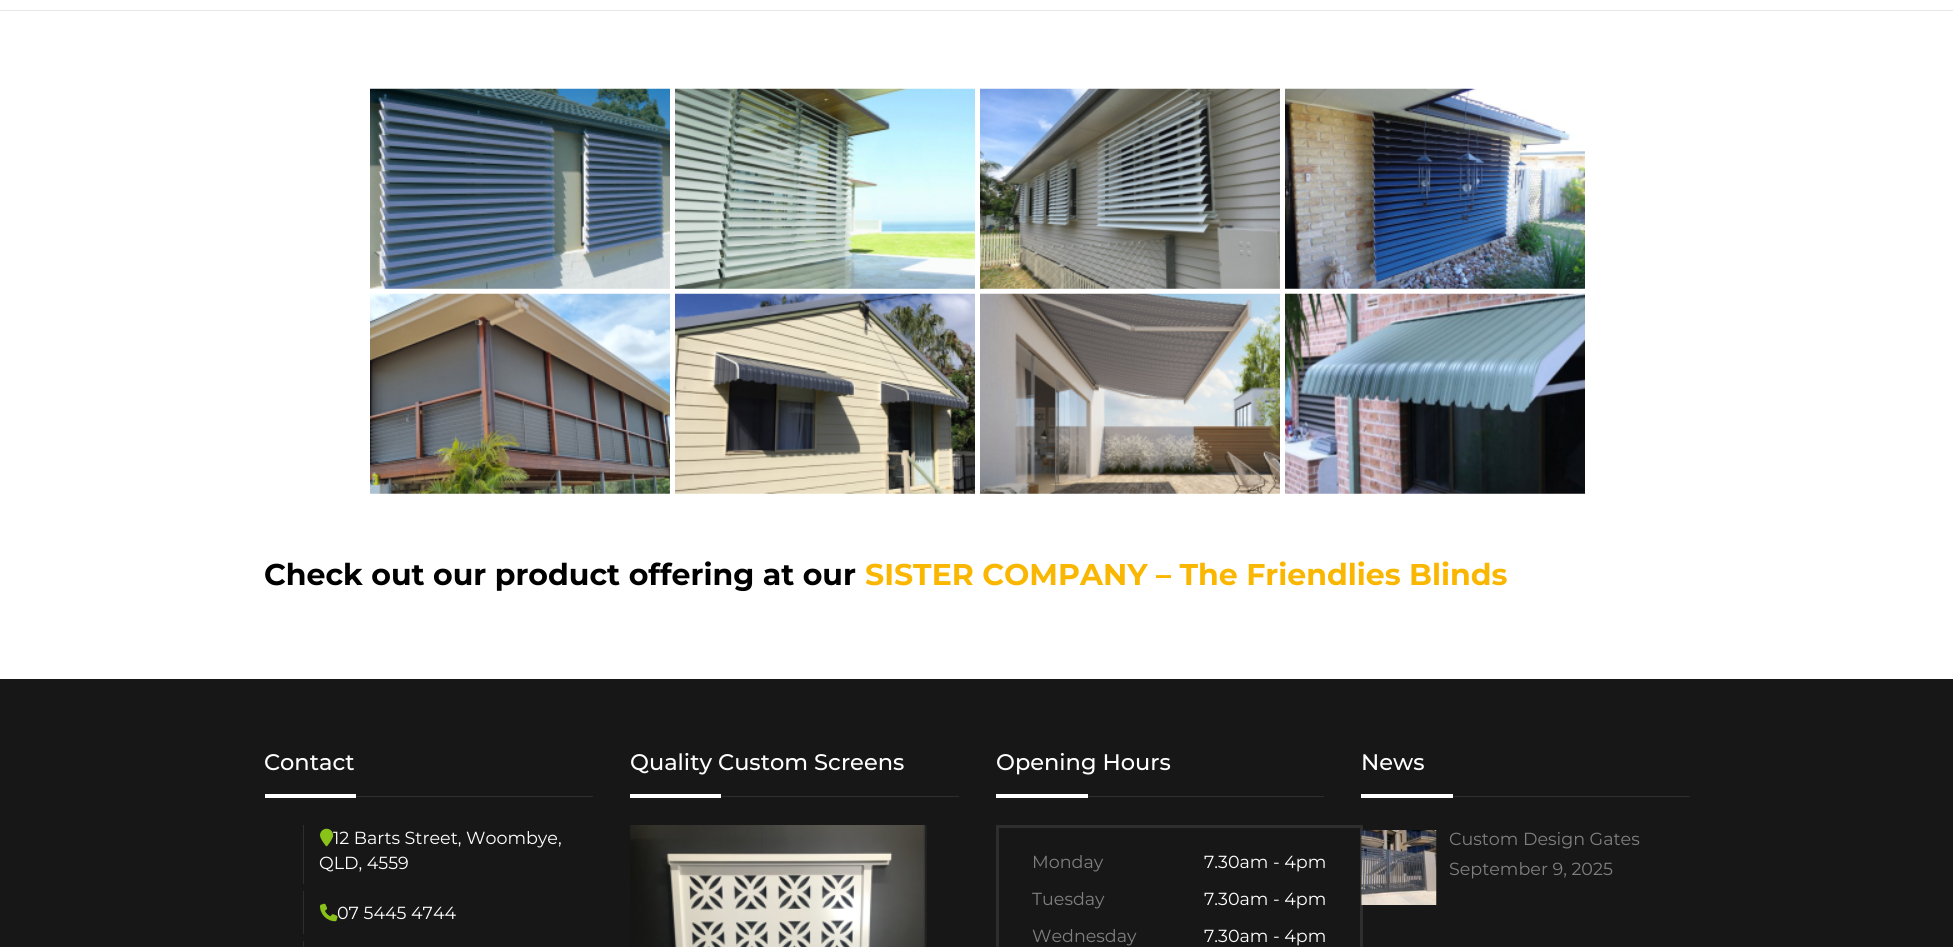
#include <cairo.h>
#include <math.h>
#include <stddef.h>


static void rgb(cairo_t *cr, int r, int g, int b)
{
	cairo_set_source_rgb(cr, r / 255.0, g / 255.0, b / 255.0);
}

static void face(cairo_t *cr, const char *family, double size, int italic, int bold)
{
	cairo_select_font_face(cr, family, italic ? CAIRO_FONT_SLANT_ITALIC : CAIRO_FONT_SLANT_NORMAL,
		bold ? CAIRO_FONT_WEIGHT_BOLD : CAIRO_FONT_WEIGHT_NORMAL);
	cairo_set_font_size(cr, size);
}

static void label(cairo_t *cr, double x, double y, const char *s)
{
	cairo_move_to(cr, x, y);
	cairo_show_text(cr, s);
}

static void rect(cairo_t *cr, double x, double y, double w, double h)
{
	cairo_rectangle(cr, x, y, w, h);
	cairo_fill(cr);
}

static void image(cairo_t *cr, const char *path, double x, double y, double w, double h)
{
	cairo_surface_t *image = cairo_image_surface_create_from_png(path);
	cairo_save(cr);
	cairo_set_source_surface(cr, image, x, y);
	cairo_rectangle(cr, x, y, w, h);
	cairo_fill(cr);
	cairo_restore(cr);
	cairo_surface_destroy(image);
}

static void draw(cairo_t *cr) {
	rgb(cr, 255, 255, 255);
	cairo_paint(cr);
	rgb(cr, 231, 231, 231);
	rect(cr, 0, 10, 1953, 1);
	image(cr, "image0.png", 370, 88, 300, 201);
	image(cr, "image1.png", 675, 88, 300, 201);
	image(cr, "image2.png", 980, 88, 300, 201);
	image(cr, "image3.png", 1285, 88, 300, 201);
	image(cr, "image4.png", 370, 293, 300, 201);
	image(cr, "image5.png", 675, 293, 300, 201);
	image(cr, "image6.png", 980, 293, 300, 201);
	image(cr, "image7.png", 1285, 293, 300, 201);
	face(cr, "Montserrat", 30, 0, 1);
	rgb(cr, 0, 0, 0);
	label(cr, 264, 585, "Check out our product offering at our");
	rgb(cr, 250, 183, 2);
	label(cr, 865, 585, "SISTER COMPANY – The Friendlies Blinds");
	rgb(cr, 23, 23, 23);
	rect(cr, 0, 679, 1953, 268);
	rgb(cr, 46, 46, 46);
	rect(cr, 356, 796, 237, 1);
	face(cr, "Montserrat Medium", 22.5, 0, 0);
	rgb(cr, 255, 255, 255);
	label(cr, 264, 770, "Contact");
	rect(cr, 265, 794, 91, 4);
	rgb(cr, 46, 46, 46);
	rect(cr, 303, 825, 1, 59);
	face(cr, "Montserrat", 17.5, 0, 0);
	rgb(cr, 255, 255, 255);
	label(cr, 333, 844, "12 Barts Street, Woombye,");
	image(cr, "image8.png", 320, 828, 14, 19);
	label(cr, 319, 869, "QLD, 4559");
	rgb(cr, 46, 46, 46);
	rect(cr, 303, 891, 1, 43);
	rgb(cr, 255, 255, 255);
	label(cr, 337, 919, "07 5445 4744");
	image(cr, "image9.png", 320, 903, 18, 19);
	rgb(cr, 46, 46, 46);
	rect(cr, 303, 941, 1, 6);
	rect(cr, 721, 796, 238, 1);
	face(cr, "Montserrat Medium", 22.5, 0, 0);
	rgb(cr, 255, 255, 255);
	label(cr, 630, 770, "Quality Custom Screens");
	rect(cr, 630, 794, 91, 4);
	image(cr, "image10.png", 630, 825, 297, 122);
	rgb(cr, 46, 46, 46);
	rect(cr, 1088, 796, 236, 1);
	rgb(cr, 255, 255, 255);
	label(cr, 996, 770, "Opening Hours");
	rect(cr, 996, 794, 92, 4);
	cairo_rectangle(cr, 997.5, 826.5, 364, 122);
	rgb(cr, 46, 46, 46);
	cairo_set_line_width(cr, 3);
	cairo_stroke(cr);
	face(cr, "Montserrat", 17.5, 0, 0);
	rgb(cr, 127, 127, 127);
	label(cr, 1032, 868, "Monday");
	rgb(cr, 255, 255, 255);
	label(cr, 1204, 868, "7.30am - 4pm");
	rgb(cr, 127, 127, 127);
	label(cr, 1032, 905, "Tuesday");
	rgb(cr, 255, 255, 255);
	label(cr, 1204, 905, "7.30am - 4pm");
	rgb(cr, 127, 127, 127);
	label(cr, 1032, 942, "Wednesday");
	rgb(cr, 255, 255, 255);
	label(cr, 1204, 942, "7.30am - 4pm");
	rgb(cr, 46, 46, 46);
	rect(cr, 1453, 796, 237, 1);
	face(cr, "Montserrat Medium", 22.5, 0, 0);
	rgb(cr, 255, 255, 255);
	label(cr, 1361, 770, "News");
	rect(cr, 1361, 794, 92, 4);
	image(cr, "image11.png", 1361, 830, 76, 75);
	face(cr, "Montserrat", 17.5, 0, 0);
	rgb(cr, 127, 127, 127);
	label(cr, 1449, 845, "Custom Design Gates");
	label(cr, 1449, 875, "September 9, 2025");
}

int main(void) {
	cairo_surface_t *surface = cairo_image_surface_create(CAIRO_FORMAT_RGB24, 1953, 947);
	cairo_t *cr = cairo_create(surface);
	cairo_font_options_t *options = cairo_font_options_create();
	cairo_font_options_set_hint_metrics(options, CAIRO_HINT_METRICS_OFF);
	cairo_font_options_set_hint_style(options, CAIRO_HINT_STYLE_NONE);
	cairo_set_font_options(cr, options);
	cairo_set_miter_limit(cr, 4);
	draw(cr);
	cairo_surface_write_to_png(surface, "render.png");
	cairo_font_options_destroy(options);
	cairo_destroy(cr);
	cairo_surface_destroy(surface);
	return 0;
}
